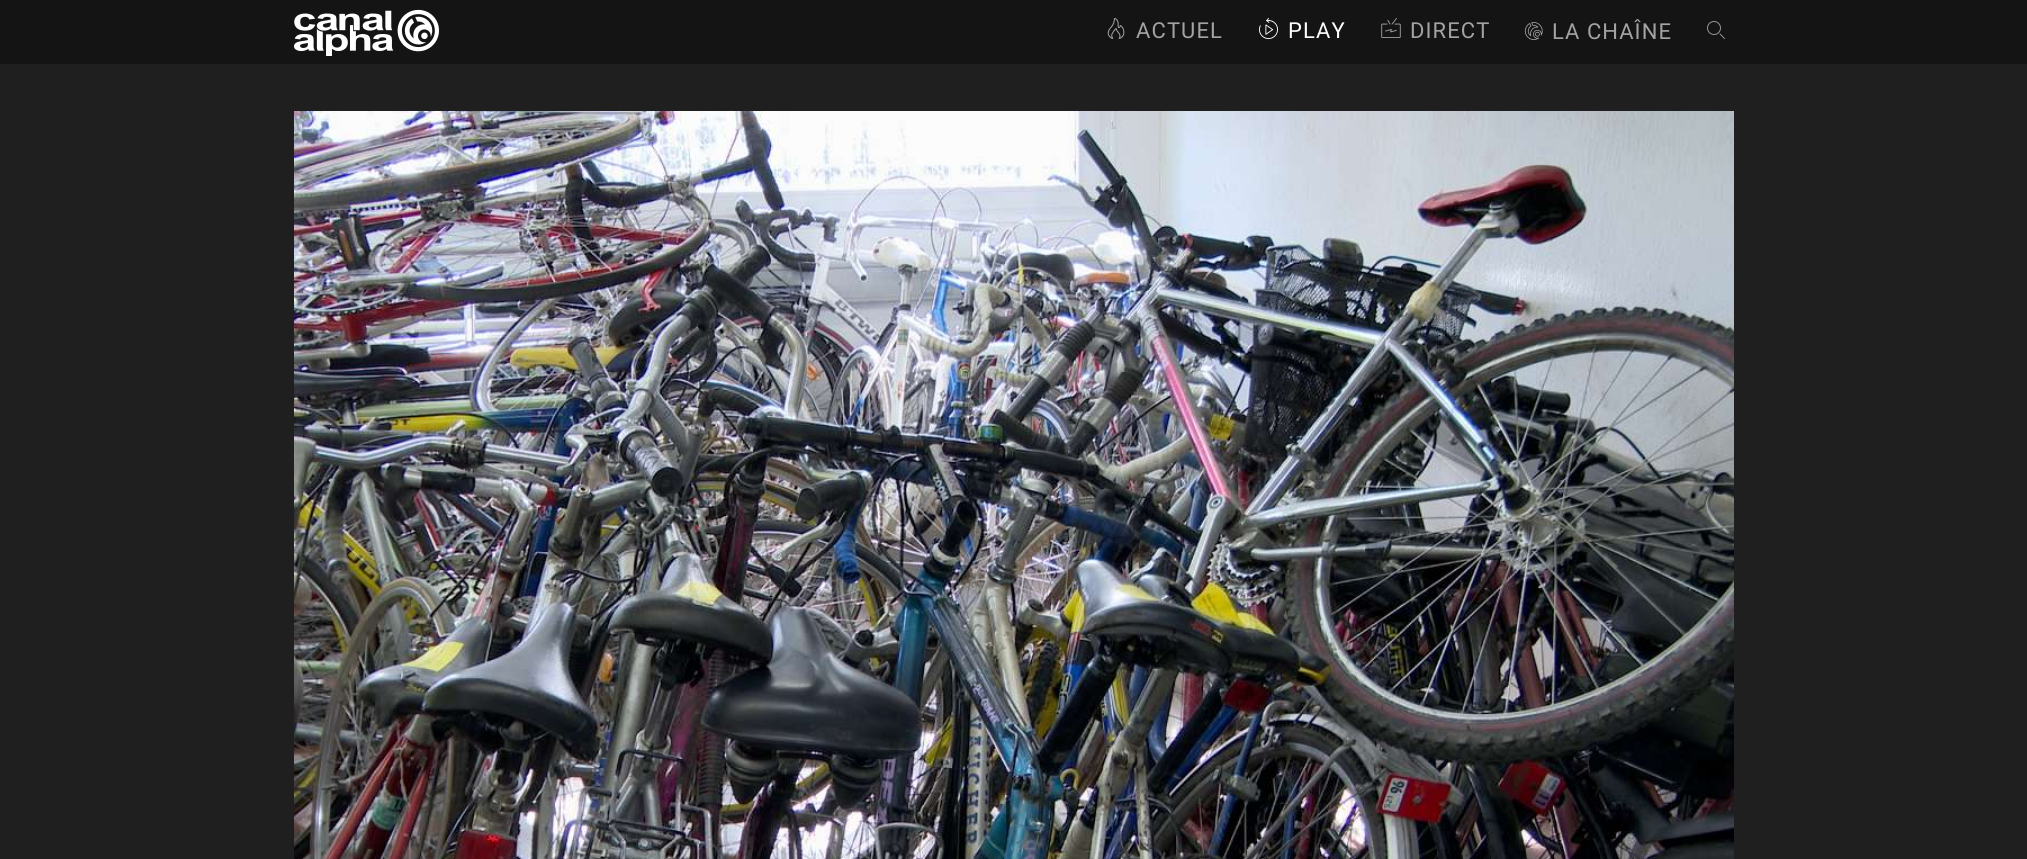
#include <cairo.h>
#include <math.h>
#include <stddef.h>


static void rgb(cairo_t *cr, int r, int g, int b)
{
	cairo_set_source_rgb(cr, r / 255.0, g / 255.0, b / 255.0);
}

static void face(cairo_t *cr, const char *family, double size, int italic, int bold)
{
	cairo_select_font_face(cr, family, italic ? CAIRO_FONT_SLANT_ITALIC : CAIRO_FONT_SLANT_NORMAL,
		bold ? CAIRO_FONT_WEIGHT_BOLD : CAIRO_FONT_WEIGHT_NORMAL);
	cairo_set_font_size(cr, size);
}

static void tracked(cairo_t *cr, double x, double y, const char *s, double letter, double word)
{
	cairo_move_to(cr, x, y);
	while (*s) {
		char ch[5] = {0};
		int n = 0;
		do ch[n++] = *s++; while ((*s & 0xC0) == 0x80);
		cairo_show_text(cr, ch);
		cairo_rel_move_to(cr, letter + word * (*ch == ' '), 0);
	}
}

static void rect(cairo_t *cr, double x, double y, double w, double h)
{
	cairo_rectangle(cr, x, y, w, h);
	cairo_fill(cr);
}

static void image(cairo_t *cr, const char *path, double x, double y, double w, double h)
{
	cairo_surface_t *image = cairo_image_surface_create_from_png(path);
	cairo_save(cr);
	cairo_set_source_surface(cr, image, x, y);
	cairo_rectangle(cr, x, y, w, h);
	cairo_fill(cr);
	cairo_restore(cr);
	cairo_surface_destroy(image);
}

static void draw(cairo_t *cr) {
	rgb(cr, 31, 31, 31);
	cairo_paint(cr);
	rgb(cr, 20, 20, 20);
	rect(cr, 0, 0, 2027, 64);
	image(cr, "image0.png", 294, 9, 145, 47);
	image(cr, "image1.png", 1107, 18, 18, 21);
	face(cr, "Roboto", 22, 0, 0);
	rgb(cr, 163, 163, 163);
	tracked(cr, 1136, 38, "ACTUEL", 1.1, 0);
	image(cr, "image2.png", 1259, 18, 19, 21);
	rgb(cr, 255, 255, 255);
	tracked(cr, 1288, 38, "PLAY", 1.1, 0);
	image(cr, "image3.png", 1381, 18, 20, 20);
	rgb(cr, 163, 163, 163);
	tracked(cr, 1410, 38, "DIRECT", 1.1, 0);
	image(cr, "image4.png", 1524, 22, 19, 18);
	tracked(cr, 1552, 39, "LA CHAÎNE", 1.1, 0);
	cairo_new_path(cr);
	cairo_arc(cr, 1714, 28, 6.5, 0, 2 * M_PI);
	cairo_set_line_width(cr, 0.9);
	cairo_stroke(cr);
	cairo_new_path(cr);
	cairo_move_to(cr, 1720, 34);
	cairo_line_to(cr, 1724.5, 38.5);
	cairo_set_line_cap(cr, CAIRO_LINE_CAP_ROUND);
	cairo_set_line_join(cr, CAIRO_LINE_JOIN_ROUND);
	cairo_stroke(cr);
	image(cr, "image5.png", 294, 111, 1440, 748);
}

int main(void) {
	cairo_surface_t *surface = cairo_image_surface_create(CAIRO_FORMAT_RGB24, 2027, 859);
	cairo_t *cr = cairo_create(surface);
	cairo_font_options_t *options = cairo_font_options_create();
	cairo_font_options_set_hint_metrics(options, CAIRO_HINT_METRICS_OFF);
	cairo_font_options_set_hint_style(options, CAIRO_HINT_STYLE_NONE);
	cairo_set_font_options(cr, options);
	cairo_set_miter_limit(cr, 4);
	draw(cr);
	cairo_surface_write_to_png(surface, "render.png");
	cairo_font_options_destroy(options);
	cairo_destroy(cr);
	cairo_surface_destroy(surface);
	return 0;
}
